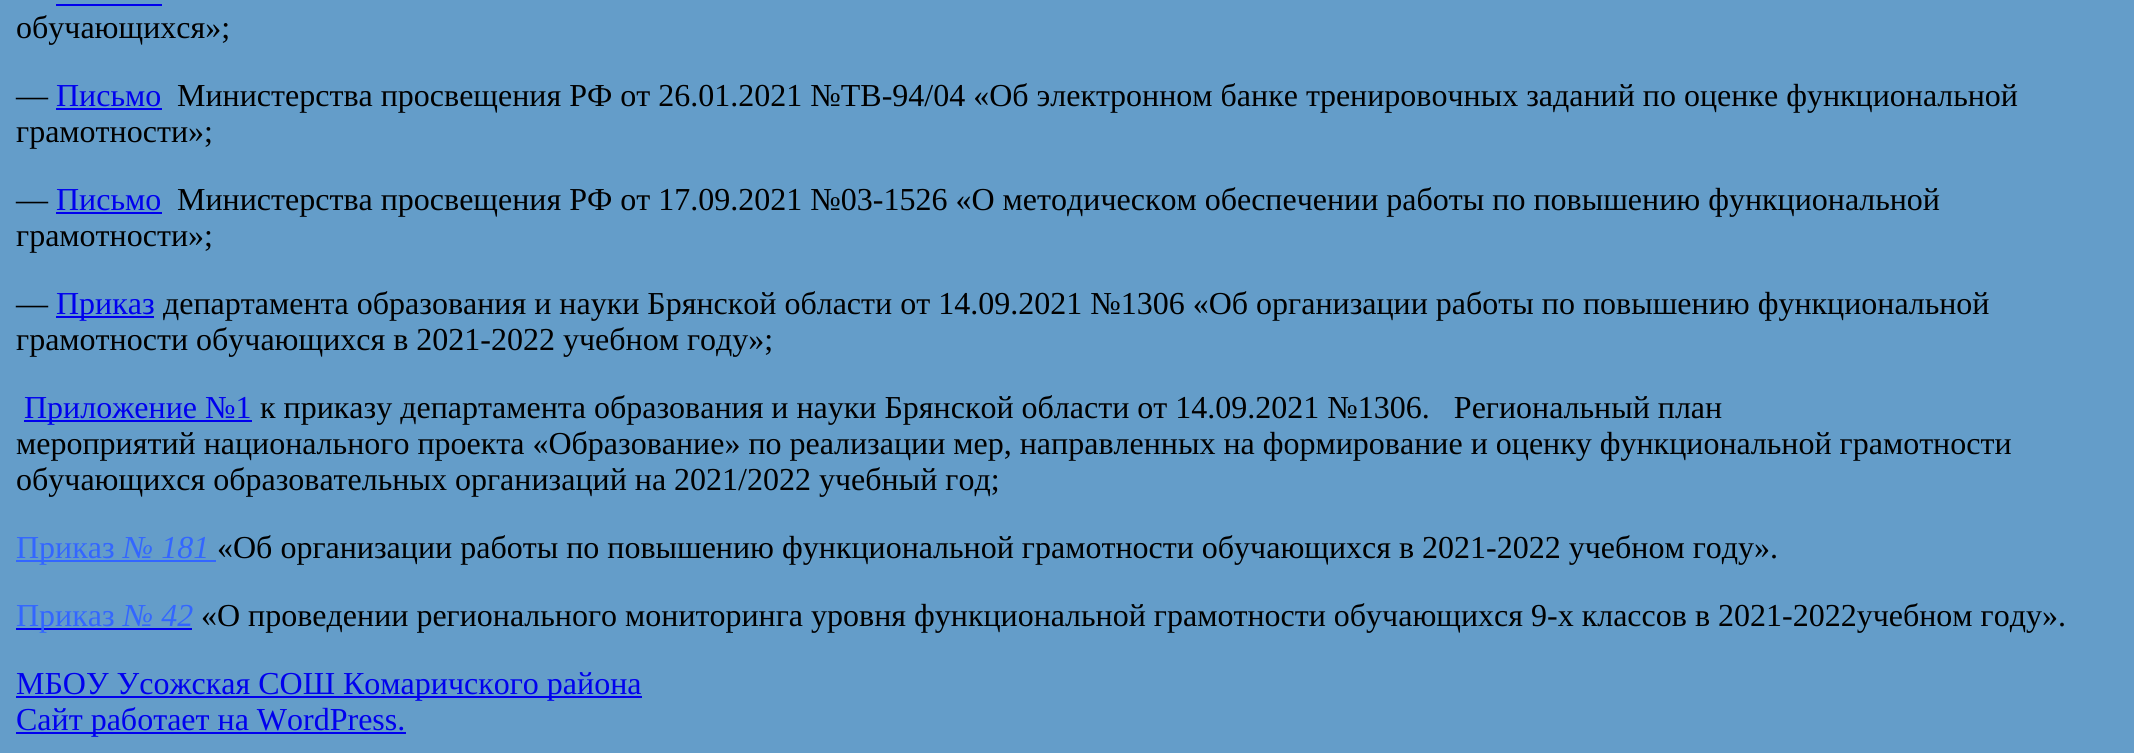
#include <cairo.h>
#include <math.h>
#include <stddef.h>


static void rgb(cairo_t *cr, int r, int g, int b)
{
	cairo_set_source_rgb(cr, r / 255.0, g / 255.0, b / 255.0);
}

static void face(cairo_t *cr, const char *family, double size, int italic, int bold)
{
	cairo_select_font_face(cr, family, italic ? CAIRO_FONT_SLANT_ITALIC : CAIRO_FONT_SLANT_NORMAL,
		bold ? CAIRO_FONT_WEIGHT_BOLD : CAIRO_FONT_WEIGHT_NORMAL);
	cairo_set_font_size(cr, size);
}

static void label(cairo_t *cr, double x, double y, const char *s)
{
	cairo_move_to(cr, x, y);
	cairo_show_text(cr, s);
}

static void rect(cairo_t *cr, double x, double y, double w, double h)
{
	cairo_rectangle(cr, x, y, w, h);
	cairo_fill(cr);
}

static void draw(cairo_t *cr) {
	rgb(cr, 100, 157, 201);
	cairo_paint(cr);
	rgb(cr, 0, 0, 238);
	rect(cr, 56, 4, 106, 2);
	face(cr, "Liberation Serif", 32, 0, 0);
	rgb(cr, 0, 0, 0);
	label(cr, 16, 38, "обучающихся»;");
	label(cr, 16, 106, "—");
	rgb(cr, 0, 0, 238);
	label(cr, 56, 106, "Письмо");
	rect(cr, 56, 108, 106, 2);
	rgb(cr, 0, 0, 0);
	label(cr, 177, 106, "Министерства просвещения РФ от 26.01.2021 №ТВ-94/04 «Об электронном банке тренировочных заданий по оценке функциональной");
	label(cr, 16, 142, "грамотности»;");
	label(cr, 16, 210, "—");
	rgb(cr, 0, 0, 238);
	label(cr, 56, 210, "Письмо");
	rect(cr, 56, 212, 106, 2);
	rgb(cr, 0, 0, 0);
	label(cr, 177, 210, "Министерства просвещения РФ от 17.09.2021 №03-1526 «О методическом обеспечении работы по повышению функциональной");
	label(cr, 16, 246, "грамотности»;");
	label(cr, 16, 314, "—");
	rgb(cr, 0, 0, 238);
	rect(cr, 56, 316, 98, 2);
	label(cr, 56, 314, "Приказ");
	rgb(cr, 0, 0, 0);
	label(cr, 163, 314, "департамента образования и науки Брянской области от 14.09.2021 №1306 «Об организации работы по повышению функциональной");
	label(cr, 16, 350, "грамотности обучающихся в 2021-2022 учебном году»;");
	rgb(cr, 0, 0, 238);
	rect(cr, 24, 420, 228, 2);
	label(cr, 24, 418, "Приложение №1");
	rgb(cr, 0, 0, 0);
	label(cr, 260, 418, "к приказу департамента образования и науки Брянской области от 14.09.2021 №1306.   Региональный план");
	label(cr, 16, 454, "мероприятий национального проекта «Образование» по реализации мер, направленных на формирование и оценку функциональной грамотности");
	label(cr, 16, 490, "обучающихся образовательных организаций на 2021/2022 учебный год;");
	rgb(cr, 51, 102, 255);
	rect(cr, 16, 560, 200, 2);
	label(cr, 16, 558, "Приказ");
	face(cr, "Liberation Serif", 32, 1, 0);
	label(cr, 123, 558, "№ 181");
	face(cr, "Liberation Serif", 32, 0, 0);
	rgb(cr, 0, 0, 0);
	label(cr, 217, 558, "«Об организации работы по повышению функциональной грамотности обучающихся в 2021-2022 учебном году».");
	rgb(cr, 0, 0, 238);
	rect(cr, 16, 628, 176, 2);
	rgb(cr, 51, 102, 255);
	label(cr, 16, 626, "Приказ");
	face(cr, "Liberation Serif", 32, 1, 0);
	label(cr, 123, 626, "№ 42");
	face(cr, "Liberation Serif", 32, 0, 0);
	rgb(cr, 0, 0, 0);
	label(cr, 201, 626, "«О проведении регионального мониторинга уровня функциональной грамотности обучающихся 9-х классов в 2021-2022учебном году».");
	rgb(cr, 0, 0, 238);
	rect(cr, 16, 696, 626, 2);
	label(cr, 16, 694, "МБОУ Усожская СОШ Комаричского района");
	rect(cr, 16, 732, 390, 2);
	label(cr, 16, 730, "Сайт работает на WordPress.");
}

int main(void) {
	cairo_surface_t *surface = cairo_image_surface_create(CAIRO_FORMAT_RGB24, 2134, 753);
	cairo_t *cr = cairo_create(surface);
	cairo_font_options_t *options = cairo_font_options_create();
	cairo_font_options_set_hint_metrics(options, CAIRO_HINT_METRICS_OFF);
	cairo_font_options_set_hint_style(options, CAIRO_HINT_STYLE_NONE);
	cairo_set_font_options(cr, options);
	cairo_set_miter_limit(cr, 4);
	draw(cr);
	cairo_surface_write_to_png(surface, "render.png");
	cairo_font_options_destroy(options);
	cairo_destroy(cr);
	cairo_surface_destroy(surface);
	return 0;
}
